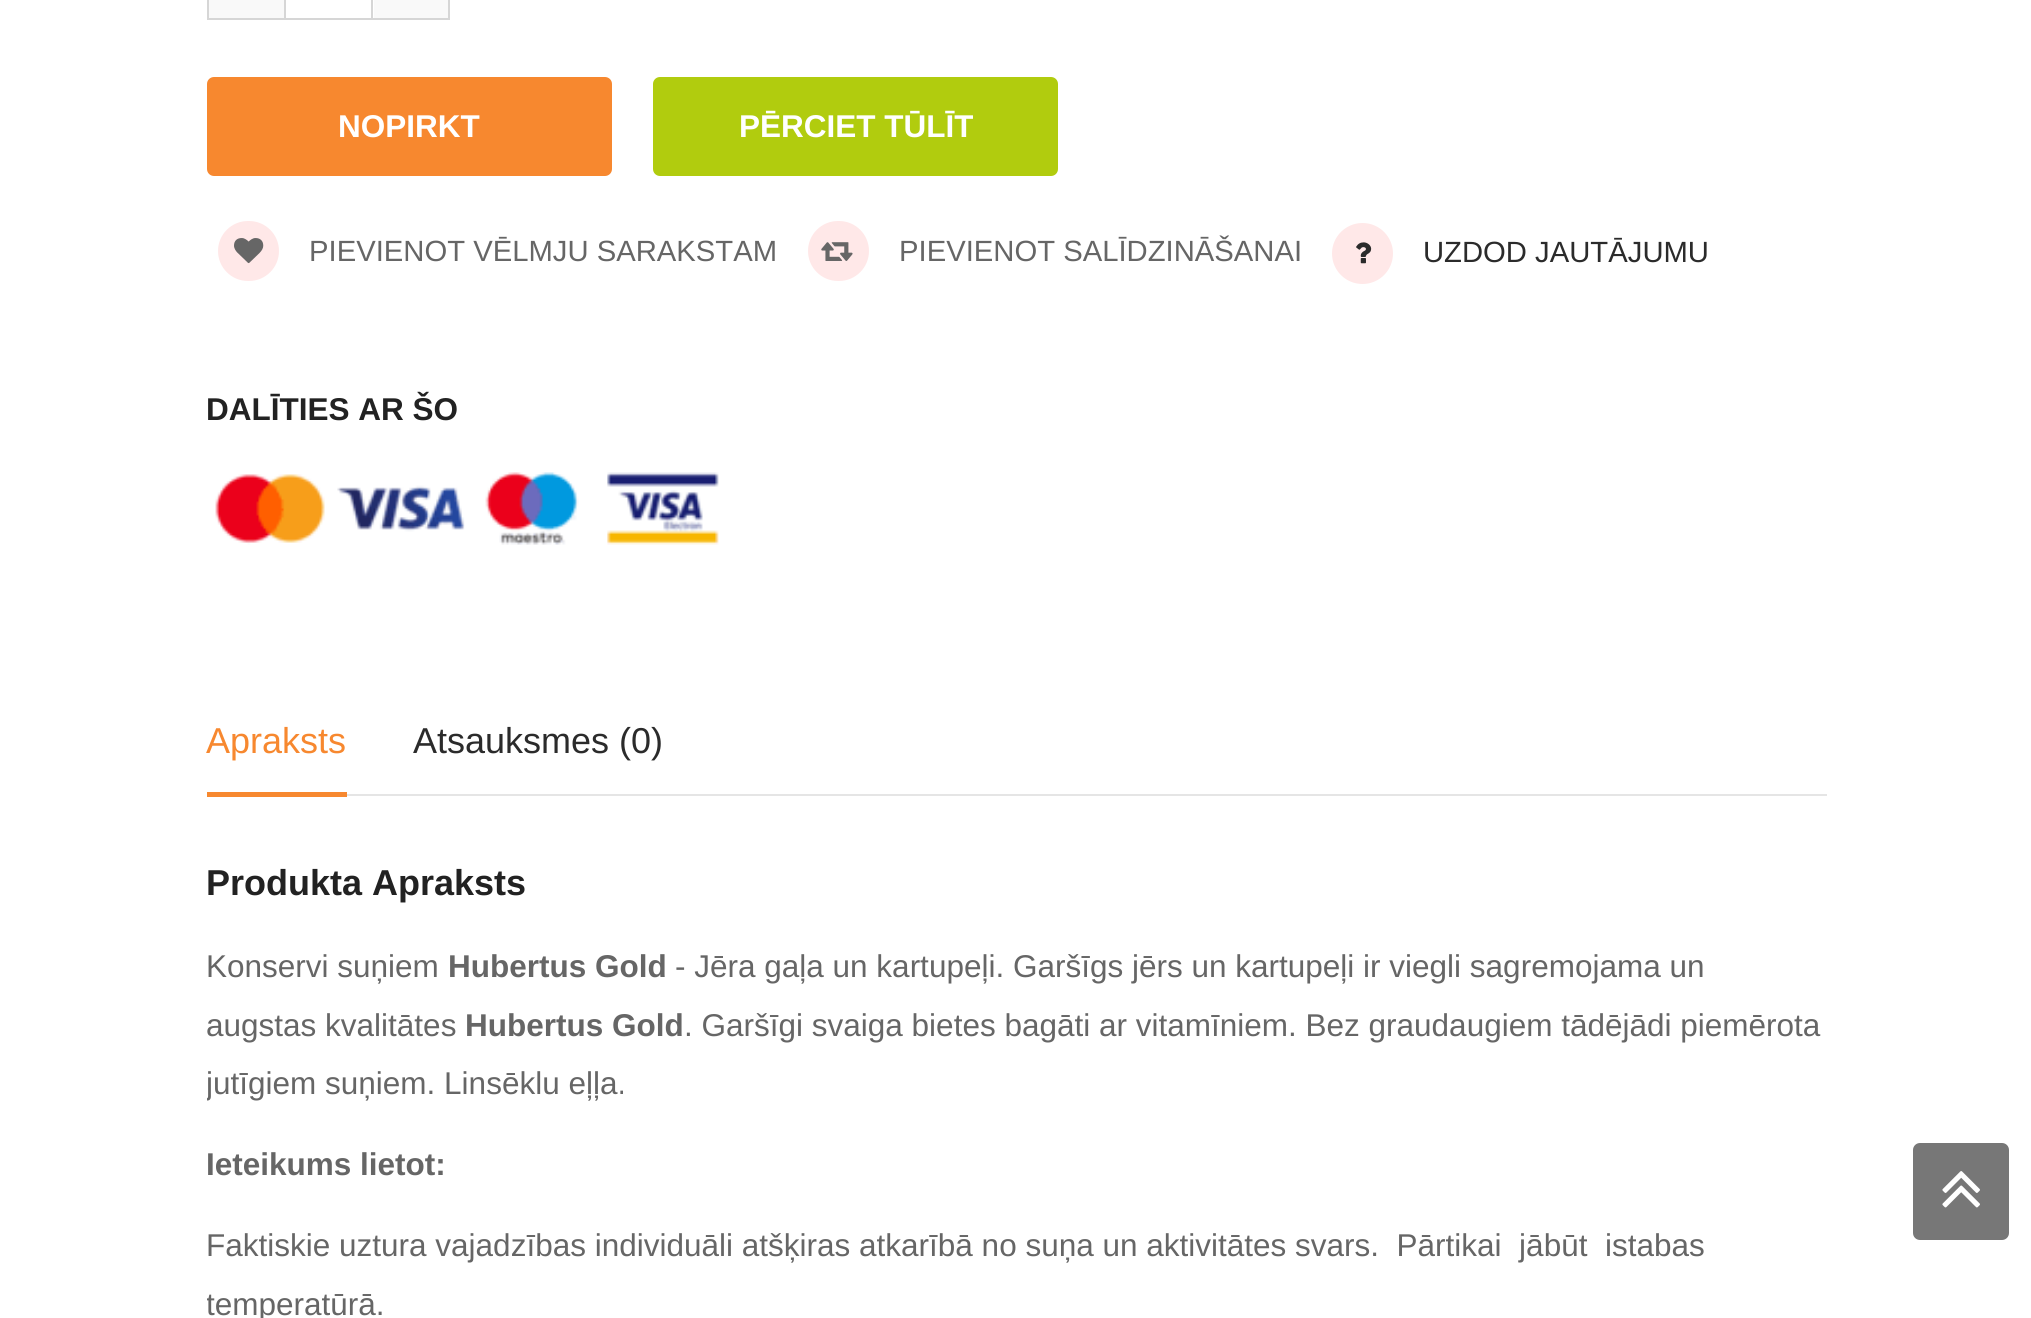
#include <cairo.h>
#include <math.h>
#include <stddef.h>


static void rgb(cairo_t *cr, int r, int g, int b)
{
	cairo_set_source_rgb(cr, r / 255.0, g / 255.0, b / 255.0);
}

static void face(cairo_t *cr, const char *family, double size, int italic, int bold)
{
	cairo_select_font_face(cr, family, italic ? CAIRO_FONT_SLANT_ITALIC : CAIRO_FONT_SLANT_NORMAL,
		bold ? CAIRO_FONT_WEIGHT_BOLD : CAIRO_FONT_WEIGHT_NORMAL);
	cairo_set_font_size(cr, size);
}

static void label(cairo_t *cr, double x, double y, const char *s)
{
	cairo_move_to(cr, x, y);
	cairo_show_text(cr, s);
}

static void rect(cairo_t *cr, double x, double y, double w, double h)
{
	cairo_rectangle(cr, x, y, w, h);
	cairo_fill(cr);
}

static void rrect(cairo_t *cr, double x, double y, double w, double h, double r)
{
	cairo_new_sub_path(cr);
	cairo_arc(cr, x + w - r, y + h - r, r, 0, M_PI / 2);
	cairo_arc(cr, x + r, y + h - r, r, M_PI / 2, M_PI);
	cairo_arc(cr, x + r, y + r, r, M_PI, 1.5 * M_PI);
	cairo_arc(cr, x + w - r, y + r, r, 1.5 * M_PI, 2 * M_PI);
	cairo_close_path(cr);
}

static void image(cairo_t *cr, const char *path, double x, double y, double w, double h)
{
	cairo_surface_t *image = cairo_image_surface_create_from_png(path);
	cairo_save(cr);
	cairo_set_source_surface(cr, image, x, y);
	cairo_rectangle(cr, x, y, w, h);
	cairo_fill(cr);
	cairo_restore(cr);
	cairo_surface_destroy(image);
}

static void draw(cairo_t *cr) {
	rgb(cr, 255, 255, 255);
	cairo_paint(cr);
	cairo_rectangle(cr, 208, -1, 241, 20);
	rgb(cr, 214, 214, 214);
	cairo_stroke(cr);
	rgb(cr, 249, 249, 249);
	rect(cr, 209, 0, 75, 18);
	rgb(cr, 214, 214, 214);
	rect(cr, 371, 0, 2, 18);
	rect(cr, 284, 0, 2, 18);
	rgb(cr, 249, 249, 249);
	rect(cr, 374, 0, 74, 18);
	rgb(cr, 247, 136, 47);
	rrect(cr, 207, 77, 405, 99, 7);
	cairo_fill(cr);
	face(cr, "Liberation Sans", 31.5, 0, 1);
	rgb(cr, 255, 255, 255);
	label(cr, 338, 137, "NOPIRKT");
	rgb(cr, 177, 204, 14);
	rrect(cr, 653, 77, 405, 99, 7);
	cairo_fill(cr);
	rgb(cr, 255, 255, 255);
	label(cr, 739, 137, "PĒRCIET TŪLĪT");
	rgb(cr, 255, 232, 232);
	rrect(cr, 219, 222, 59, 58, 29);
	cairo_fill_preserve(cr);
	cairo_stroke(cr);
	image(cr, "image0.png", 234, 238, 30, 26);
	face(cr, "Liberation Sans", 29.25, 0, 0);
	rgb(cr, 102, 102, 102);
	label(cr, 309, 261, "PIEVIENOT VĒLMJU SARAKSTAM");
	rgb(cr, 255, 232, 232);
	rrect(cr, 809, 222, 59, 58, 29);
	cairo_fill_preserve(cr);
	cairo_stroke(cr);
	image(cr, "image1.png", 821, 242, 32, 19);
	rgb(cr, 102, 102, 102);
	label(cr, 899, 261, "PIEVIENOT SALĪDZINĀŠANAI");
	rgb(cr, 255, 232, 232);
	cairo_new_path(cr);
	cairo_arc(cr, 1362.5, 253.5, 29.5, 0, 2 * M_PI);
	cairo_fill_preserve(cr);
	cairo_stroke(cr);
	image(cr, "image2.png", 1356, 242, 16, 22);
	rgb(cr, 43, 43, 43);
	label(cr, 1423, 262, "UZDOD JAUTĀJUMU");
	face(cr, "Liberation Sans", 31.5, 0, 1);
	rgb(cr, 34, 34, 34);
	label(cr, 206, 420, "DALĪTIES AR ŠO");
	image(cr, "image3.png", 215, 472, 504, 73);
	rgb(cr, 229, 229, 229);
	rect(cr, 347, 794, 1480, 2);
	face(cr, "Liberation Sans", 36, 0, 0);
	rgb(cr, 247, 136, 47);
	label(cr, 206, 753, "Apraksts");
	rect(cr, 207, 792, 140, 5);
	rgb(cr, 43, 43, 43);
	label(cr, 413, 753, "Atsauksmes (0)");
	face(cr, "Liberation Sans", 36, 0, 1);
	rgb(cr, 34, 34, 34);
	label(cr, 206, 895, "Produkta Apraksts");
	face(cr, "Liberation Sans", 31.5, 0, 0);
	rgb(cr, 102, 102, 102);
	label(cr, 206, 977, "Konservi suņiem");
	face(cr, "Liberation Sans", 31.5, 0, 1);
	label(cr, 448, 977, "Hubertus Gold");
	face(cr, "Liberation Sans", 31.5, 0, 0);
	label(cr, 675, 977, "- Jēra gaļa un kartupeļi. Garšīgs jērs un kartupeļi ir viegli sagremojama un");
	label(cr, 206, 1036, "augstas kvalitātes");
	face(cr, "Liberation Sans", 31.5, 0, 1);
	label(cr, 465, 1036, "Hubertus Gold");
	face(cr, "Liberation Sans", 31.5, 0, 0);
	label(cr, 684, 1036, ". Garšīgi svaiga bietes bagāti ar vitamīniem. Bez graudaugiem tādējādi piemērota");
	cairo_save(cr);
	cairo_rectangle(cr, 207, 936, 1620, 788);
	cairo_clip(cr);
	label(cr, 206, 1094, "jutīgiem suņiem. Linsēklu eļļa.");
	cairo_restore(cr);
	face(cr, "Liberation Sans", 31.5, 0, 1);
	label(cr, 206, 1175, "Ieteikums lietot:");
	face(cr, "Liberation Sans", 31.5, 0, 0);
	label(cr, 206, 1256, "Faktiskie uztura vajadzības individuāli atšķiras atkarībā no suņa un aktivitātes svars.  Pārtikai  jābūt  istabas");
	cairo_save(cr);
	cairo_rectangle(cr, 207, 936, 1620, 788);
	cairo_clip(cr);
	label(cr, 206, 1315, "temperatūrā.");
	cairo_restore(cr);
	rgb(cr, 119, 119, 119);
	rrect(cr, 1913, 1143, 96, 97, 7);
	cairo_fill(cr);
	image(cr, "image4.png", 1942, 1171, 38, 37);
}

int main(void) {
	cairo_surface_t *surface = cairo_image_surface_create(CAIRO_FORMAT_RGB24, 2031, 1318);
	cairo_t *cr = cairo_create(surface);
	cairo_font_options_t *options = cairo_font_options_create();
	cairo_font_options_set_hint_metrics(options, CAIRO_HINT_METRICS_OFF);
	cairo_font_options_set_hint_style(options, CAIRO_HINT_STYLE_NONE);
	cairo_set_font_options(cr, options);
	cairo_set_miter_limit(cr, 4);
	draw(cr);
	cairo_surface_write_to_png(surface, "render.png");
	cairo_font_options_destroy(options);
	cairo_destroy(cr);
	cairo_surface_destroy(surface);
	return 0;
}
